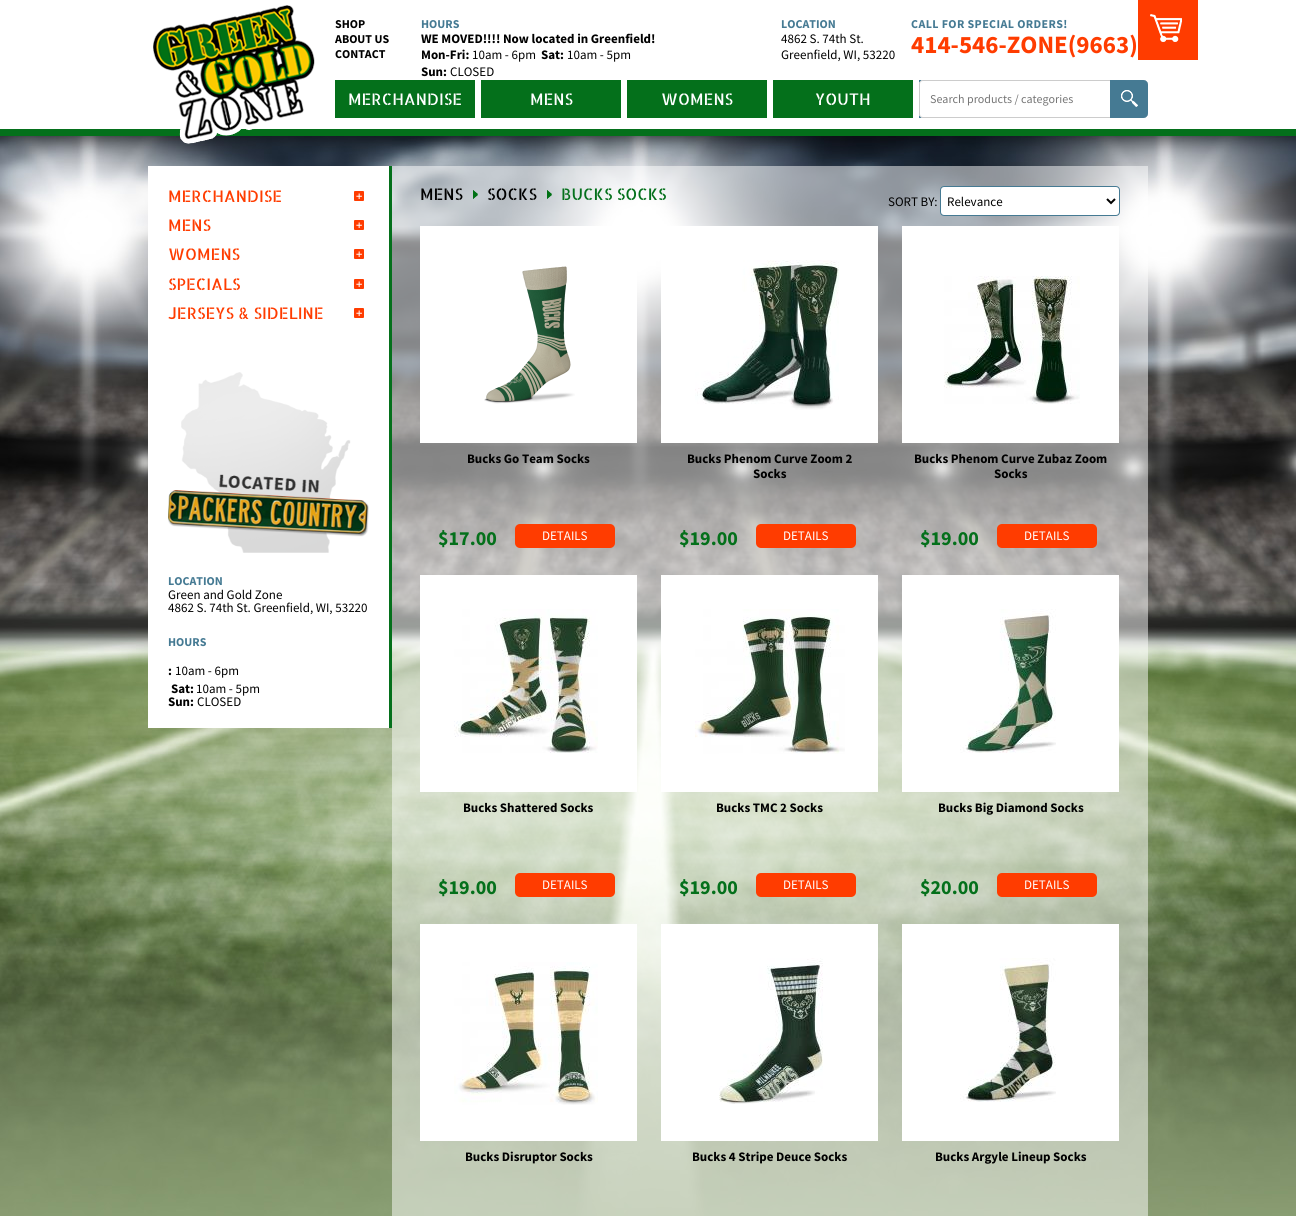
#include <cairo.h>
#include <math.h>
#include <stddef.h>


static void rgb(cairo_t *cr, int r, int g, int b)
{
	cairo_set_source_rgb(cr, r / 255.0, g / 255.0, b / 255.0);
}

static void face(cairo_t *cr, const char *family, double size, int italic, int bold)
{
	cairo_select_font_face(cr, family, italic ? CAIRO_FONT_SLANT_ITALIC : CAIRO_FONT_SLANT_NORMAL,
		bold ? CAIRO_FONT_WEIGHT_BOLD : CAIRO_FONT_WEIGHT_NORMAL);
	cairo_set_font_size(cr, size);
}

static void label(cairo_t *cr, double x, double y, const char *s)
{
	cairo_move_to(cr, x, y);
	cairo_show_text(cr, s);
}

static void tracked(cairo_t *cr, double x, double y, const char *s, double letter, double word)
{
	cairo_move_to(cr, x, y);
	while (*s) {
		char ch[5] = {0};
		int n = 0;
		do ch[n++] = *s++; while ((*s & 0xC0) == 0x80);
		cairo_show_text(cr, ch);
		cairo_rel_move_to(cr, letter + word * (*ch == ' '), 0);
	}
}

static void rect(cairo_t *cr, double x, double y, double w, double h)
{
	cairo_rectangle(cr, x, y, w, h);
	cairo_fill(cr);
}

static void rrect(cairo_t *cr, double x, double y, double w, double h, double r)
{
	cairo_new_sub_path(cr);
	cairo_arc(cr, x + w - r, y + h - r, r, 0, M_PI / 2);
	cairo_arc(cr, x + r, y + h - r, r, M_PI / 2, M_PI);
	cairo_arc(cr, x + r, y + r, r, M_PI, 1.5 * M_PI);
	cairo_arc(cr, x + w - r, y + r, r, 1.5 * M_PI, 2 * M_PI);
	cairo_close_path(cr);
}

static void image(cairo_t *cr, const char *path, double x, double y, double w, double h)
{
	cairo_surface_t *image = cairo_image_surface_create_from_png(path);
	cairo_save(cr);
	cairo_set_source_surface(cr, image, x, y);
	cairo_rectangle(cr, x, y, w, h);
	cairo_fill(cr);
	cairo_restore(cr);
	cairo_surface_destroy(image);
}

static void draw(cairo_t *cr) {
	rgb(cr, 255, 255, 255);
	cairo_paint(cr);
	image(cr, "image0.png", 0, 136, 1296, 1080);
	rgb(cr, 4, 112, 27);
	rect(cr, 0, 129, 1296, 7);
	image(cr, "image1.png", 153, 5, 162, 139);
	face(cr, "Source Sans Pro", 12, 0, 1);
	rgb(cr, 0, 0, 0);
	label(cr, 335, 28, "SHOP");
	label(cr, 335, 43, "ABOUT US");
	label(cr, 335, 58, "CONTACT");
	rgb(cr, 69, 122, 147);
	label(cr, 421, 28, "HOURS");
	face(cr, "Source Sans Pro", 13, 0, 1);
	rgb(cr, 0, 0, 0);
	label(cr, 421, 43, "WE MOVED!!!! Now located in Greenfield!");
	label(cr, 421, 59, "Mon-Fri:");
	face(cr, "Source Sans Pro", 13, 0, 0);
	label(cr, 472, 59, "10am - 6pm");
	face(cr, "Source Sans Pro", 13, 0, 1);
	label(cr, 541, 59, "Sat:");
	face(cr, "Source Sans Pro", 13, 0, 0);
	label(cr, 567, 59, "10am - 5pm");
	face(cr, "Source Sans Pro", 13, 0, 1);
	label(cr, 421, 76, "Sun:");
	face(cr, "Source Sans Pro", 13, 0, 0);
	label(cr, 450, 76, "CLOSED");
	face(cr, "Source Sans Pro", 12, 0, 1);
	rgb(cr, 69, 122, 147);
	label(cr, 781, 28, "LOCATION");
	face(cr, "Source Sans Pro", 13, 0, 0);
	rgb(cr, 0, 0, 0);
	label(cr, 781, 43, "4862 S. 74th St.");
	label(cr, 781, 59, "Greenfield, WI, 53220");
	face(cr, "Source Sans Pro", 12, 0, 1);
	rgb(cr, 69, 122, 147);
	tracked(cr, 911, 28, "CALL FOR SPECIAL ORDERS!", 0.4, 0);
	face(cr, "Source Sans Pro", 25, 0, 1);
	rgb(cr, 255, 60, 0);
	label(cr, 911, 53, "414-546-ZONE(9663)");
	rect(cr, 1138, 0, 60, 60);
	image(cr, "image2.png", 1150, 14, 32, 28);
	rgb(cr, 4, 112, 27);
	rect(cr, 335, 80, 140, 38);
	face(cr, "Allerta Stencil", 16, 0, 0);
	rgb(cr, 255, 255, 255);
	label(cr, 348, 105, "MERCHANDISE");
	rgb(cr, 4, 112, 27);
	rect(cr, 481, 80, 140, 38);
	rgb(cr, 255, 255, 255);
	label(cr, 530, 105, "MENS");
	rgb(cr, 4, 112, 27);
	rect(cr, 627, 80, 140, 38);
	rgb(cr, 255, 255, 255);
	label(cr, 661, 105, "WOMENS");
	rgb(cr, 4, 112, 27);
	rect(cr, 773, 80, 140, 38);
	rgb(cr, 255, 255, 255);
	label(cr, 815, 105, "YOUTH");
	rgb(cr, 69, 122, 148);
	cairo_new_path(cr);
	cairo_move_to(cr, 919, 80);
	cairo_line_to(cr, 1143, 80);
	cairo_curve_to(cr, 1146, 80, 1148, 82, 1148, 85);
	cairo_line_to(cr, 1148, 113);
	cairo_curve_to(cr, 1148, 116, 1146, 118, 1143, 118);
	cairo_line_to(cr, 919, 118);
	cairo_close_path(cr);
	cairo_fill(cr);
	rgb(cr, 255, 255, 255);
	cairo_new_path(cr);
	cairo_move_to(cr, 923, 80);
	cairo_line_to(cr, 1143, 80);
	cairo_curve_to(cr, 1146, 80, 1148, 82, 1148, 85);
	cairo_line_to(cr, 1148, 113);
	cairo_curve_to(cr, 1148, 116, 1146, 118, 1143, 118);
	cairo_line_to(cr, 923, 118);
	cairo_curve_to(cr, 921, 118, 919, 116, 919, 114);
	cairo_line_to(cr, 919, 84);
	cairo_curve_to(cr, 919, 82, 921, 80, 923, 80);
	cairo_close_path(cr);
	cairo_fill(cr);
	rgb(cr, 204, 204, 204);
	cairo_set_fill_rule(cr, CAIRO_FILL_RULE_EVEN_ODD);
	cairo_new_path(cr);
	cairo_move_to(cr, 923, 80);
	cairo_curve_to(cr, 921, 80, 919, 82, 919, 84);
	cairo_line_to(cr, 919, 114);
	cairo_curve_to(cr, 919, 116, 921, 118, 923, 118);
	cairo_line_to(cr, 1143, 118);
	cairo_curve_to(cr, 1146, 118, 1148, 116, 1148, 113);
	cairo_line_to(cr, 1148, 85);
	cairo_curve_to(cr, 1148, 82, 1146, 80, 1143, 80);
	cairo_close_path(cr);
	cairo_move_to(cr, 923, 81);
	cairo_curve_to(cr, 921, 81, 920, 82, 920, 84);
	cairo_line_to(cr, 920, 114);
	cairo_curve_to(cr, 920, 116, 921, 117, 923, 117);
	cairo_line_to(cr, 1144, 117);
	cairo_curve_to(cr, 1146, 117, 1147, 116, 1147, 114);
	cairo_line_to(cr, 1147, 84);
	cairo_curve_to(cr, 1147, 82, 1146, 81, 1144, 81);
	cairo_close_path(cr);
	cairo_fill(cr);
	face(cr, "Source Sans Pro", 12, 0, 0);
	rgb(cr, 117, 117, 117);
	label(cr, 930, 103, "Search products / categories");
	rgb(cr, 69, 122, 147);
	cairo_new_path(cr);
	cairo_move_to(cr, 1110, 80);
	cairo_line_to(cr, 1143, 80);
	cairo_curve_to(cr, 1146, 80, 1148, 82, 1148, 85);
	cairo_line_to(cr, 1148, 113);
	cairo_curve_to(cr, 1148, 116, 1146, 118, 1143, 118);
	cairo_line_to(cr, 1110, 118);
	cairo_close_path(cr);
	cairo_fill(cr);
	image(cr, "image3.png", 1121, 90, 17, 17);
	rgb(cr, 255, 255, 255);
	rect(cr, 148, 166, 241, 562);
	rgb(cr, 4, 112, 27);
	rect(cr, 389, 166, 3, 562);
	face(cr, "Allerta Stencil", 16, 0, 0);
	rgb(cr, 255, 60, 0);
	label(cr, 168, 202, "MERCHANDISE");
	rrect(cr, 354, 191, 10, 10, 1);
	cairo_fill(cr);
	face(cr, "Allerta Stencil", 10, 0, 0);
	rgb(cr, 255, 255, 255);
	label(cr, 356, 199, "+");
	face(cr, "Allerta Stencil", 16, 0, 0);
	rgb(cr, 255, 60, 0);
	label(cr, 168, 231, "MENS");
	rrect(cr, 354, 220, 10, 10, 1);
	cairo_fill(cr);
	face(cr, "Allerta Stencil", 10, 0, 0);
	rgb(cr, 255, 255, 255);
	label(cr, 356, 228, "+");
	face(cr, "Allerta Stencil", 16, 0, 0);
	rgb(cr, 255, 60, 0);
	label(cr, 168, 260, "WOMENS");
	rrect(cr, 354, 249, 10, 10, 1);
	cairo_fill(cr);
	face(cr, "Allerta Stencil", 10, 0, 0);
	rgb(cr, 255, 255, 255);
	label(cr, 356, 257, "+");
	face(cr, "Allerta Stencil", 16, 0, 0);
	rgb(cr, 255, 60, 0);
	label(cr, 168, 290, "SPECIALS");
	rrect(cr, 354, 279, 10, 10, 1);
	cairo_fill(cr);
	face(cr, "Allerta Stencil", 10, 0, 0);
	rgb(cr, 255, 255, 255);
	label(cr, 356, 287, "+");
	face(cr, "Allerta Stencil", 16, 0, 0);
	rgb(cr, 255, 60, 0);
	label(cr, 168, 319, "JERSEYS & SIDELINE");
	rrect(cr, 354, 308, 10, 10, 1);
	cairo_fill(cr);
	face(cr, "Allerta Stencil", 10, 0, 0);
	rgb(cr, 255, 255, 255);
	label(cr, 356, 316, "+");
	image(cr, "image4.png", 168, 372, 201, 181);
	face(cr, "Source Sans Pro", 12, 0, 1);
	rgb(cr, 69, 122, 147);
	label(cr, 168, 585, "LOCATION");
	face(cr, "Source Sans Pro", 13, 0, 0);
	rgb(cr, 0, 0, 0);
	label(cr, 168, 599, "Green and Gold Zone");
	label(cr, 168, 612, "4862 S. 74th St. Greenfield, WI, 53220");
	face(cr, "Source Sans Pro", 12, 0, 1);
	rgb(cr, 69, 122, 147);
	label(cr, 168, 646, "HOURS");
	face(cr, "Source Sans Pro", 13, 0, 1);
	rgb(cr, 0, 0, 0);
	label(cr, 168, 675, ":");
	face(cr, "Source Sans Pro", 13, 0, 0);
	label(cr, 175, 675, "10am - 6pm");
	face(cr, "Source Sans Pro", 13, 0, 1);
	label(cr, 171, 693, "Sat:");
	face(cr, "Source Sans Pro", 13, 0, 0);
	label(cr, 196, 693, "10am - 5pm");
	face(cr, "Source Sans Pro", 13, 0, 1);
	label(cr, 168, 706, "Sun:");
	face(cr, "Source Sans Pro", 13, 0, 0);
	label(cr, 197, 706, "CLOSED");
	cairo_set_source_rgba(cr, 1, 1, 1, 0.5);
	rect(cr, 392, 166, 756, 1050);
	face(cr, "Allerta Stencil", 16, 0, 0);
	rgb(cr, 0, 0, 0);
	label(cr, 420, 200, "MENS");
	image(cr, "image5.png", 473, 190, 5, 9);
	label(cr, 487, 200, "SOCKS");
	image(cr, "image6.png", 547, 190, 5, 9);
	rgb(cr, 4, 112, 27);
	label(cr, 561, 200, "BUCKS SOCKS");
	face(cr, "Source Sans Pro", 13, 0, 0);
	rgb(cr, 0, 0, 0);
	label(cr, 888, 206, "SORT BY:");
	rgb(cr, 255, 255, 255);
	rrect(cr, 940.5, 186.5, 179, 29, 3.5);
	cairo_fill_preserve(cr);
	rgb(cr, 69, 122, 147);
	cairo_set_line_width(cr, 1);
	cairo_stroke(cr);
	cairo_new_path(cr);
	cairo_move_to(cr, 1107, 199);
	cairo_line_to(cr, 1111, 203);
	cairo_line_to(cr, 1115, 199);
	rgb(cr, 0, 0, 0);
	cairo_set_line_width(cr, 2);
	cairo_stroke(cr);
	label(cr, 947, 206, "Relevance");
	rgb(cr, 255, 255, 255);
	rect(cr, 420, 226, 217, 217);
	image(cr, "image7.png", 484, 266, 91, 138);
	face(cr, "Source Sans Pro", 13, 0, 1);
	rgb(cr, 0, 0, 0);
	label(cr, 467, 463, "Bucks Go Team Socks");
	face(cr, "Source Sans Pro", 20, 0, 1);
	rgb(cr, 4, 112, 27);
	label(cr, 438, 545, "$17.00");
	rgb(cr, 255, 60, 0);
	rrect(cr, 515, 524, 100, 24, 5);
	cairo_fill(cr);
	face(cr, "Source Sans Pro", 13, 0, 0);
	rgb(cr, 255, 255, 255);
	label(cr, 542, 540, "DETAILS");
	rect(cr, 661, 226, 217, 217);
	image(cr, "image8.png", 695, 260, 144, 150);
	face(cr, "Source Sans Pro", 13, 0, 1);
	rgb(cr, 0, 0, 0);
	label(cr, 687, 463, "Bucks Phenom Curve Zoom 2");
	label(cr, 753, 478, "Socks");
	face(cr, "Source Sans Pro", 20, 0, 1);
	rgb(cr, 4, 112, 27);
	label(cr, 679, 545, "$19.00");
	rgb(cr, 255, 60, 0);
	rrect(cr, 756, 524, 100, 24, 5);
	cairo_fill(cr);
	face(cr, "Source Sans Pro", 13, 0, 0);
	rgb(cr, 255, 255, 255);
	label(cr, 783, 540, "DETAILS");
	rect(cr, 902, 226, 217, 217);
	image(cr, "image9.png", 944, 276, 136, 128);
	face(cr, "Source Sans Pro", 13, 0, 1);
	rgb(cr, 0, 0, 0);
	label(cr, 914, 463, "Bucks Phenom Curve Zubaz Zoom");
	label(cr, 994, 478, "Socks");
	face(cr, "Source Sans Pro", 20, 0, 1);
	rgb(cr, 4, 112, 27);
	label(cr, 920, 545, "$19.00");
	rgb(cr, 255, 60, 0);
	rrect(cr, 997, 524, 100, 24, 5);
	cairo_fill(cr);
	face(cr, "Source Sans Pro", 13, 0, 0);
	rgb(cr, 255, 255, 255);
	label(cr, 1024, 540, "DETAILS");
	rect(cr, 420, 575, 217, 217);
	image(cr, "image10.png", 454, 609, 144, 144);
	face(cr, "Source Sans Pro", 13, 0, 1);
	rgb(cr, 0, 0, 0);
	label(cr, 463, 812, "Bucks Shattered Socks");
	face(cr, "Source Sans Pro", 20, 0, 1);
	rgb(cr, 4, 112, 27);
	label(cr, 438, 894, "$19.00");
	rgb(cr, 255, 60, 0);
	rrect(cr, 515, 873, 100, 24, 5);
	cairo_fill(cr);
	face(cr, "Source Sans Pro", 13, 0, 0);
	rgb(cr, 255, 255, 255);
	label(cr, 542, 889, "DETAILS");
	rect(cr, 661, 575, 217, 217);
	image(cr, "image11.png", 695, 609, 150, 145);
	face(cr, "Source Sans Pro", 13, 0, 1);
	rgb(cr, 0, 0, 0);
	label(cr, 716, 812, "Bucks TMC 2 Socks");
	face(cr, "Source Sans Pro", 20, 0, 1);
	rgb(cr, 4, 112, 27);
	label(cr, 679, 894, "$19.00");
	rgb(cr, 255, 60, 0);
	rrect(cr, 756, 873, 100, 24, 5);
	cairo_fill(cr);
	face(cr, "Source Sans Pro", 13, 0, 0);
	rgb(cr, 255, 255, 255);
	label(cr, 783, 889, "DETAILS");
	rect(cr, 902, 575, 217, 217);
	image(cr, "image12.png", 960, 609, 96, 144);
	face(cr, "Source Sans Pro", 13, 0, 1);
	rgb(cr, 0, 0, 0);
	label(cr, 938, 812, "Bucks Big Diamond Socks");
	face(cr, "Source Sans Pro", 20, 0, 1);
	rgb(cr, 4, 112, 27);
	label(cr, 920, 894, "$20.00");
	rgb(cr, 255, 60, 0);
	rrect(cr, 997, 873, 100, 24, 5);
	cairo_fill(cr);
	face(cr, "Source Sans Pro", 13, 0, 0);
	rgb(cr, 255, 255, 255);
	label(cr, 1024, 889, "DETAILS");
	rect(cr, 420, 924, 217, 217);
	image(cr, "image13.png", 454, 962, 144, 143);
	face(cr, "Source Sans Pro", 13, 0, 1);
	rgb(cr, 0, 0, 0);
	label(cr, 465, 1161, "Bucks Disruptor Socks");
	rgb(cr, 255, 255, 255);
	rect(cr, 661, 924, 217, 217);
	image(cr, "image14.png", 719, 958, 104, 146);
	rgb(cr, 0, 0, 0);
	label(cr, 692, 1161, "Bucks 4 Stripe Deuce Socks");
	rgb(cr, 255, 255, 255);
	rect(cr, 902, 924, 217, 217);
	image(cr, "image15.png", 960, 958, 96, 144);
	rgb(cr, 0, 0, 0);
	label(cr, 935, 1161, "Bucks Argyle Lineup Socks");
}

int main(void) {
	cairo_surface_t *surface = cairo_image_surface_create(CAIRO_FORMAT_RGB24, 1296, 1216);
	cairo_t *cr = cairo_create(surface);
	cairo_font_options_t *options = cairo_font_options_create();
	cairo_font_options_set_hint_metrics(options, CAIRO_HINT_METRICS_OFF);
	cairo_font_options_set_hint_style(options, CAIRO_HINT_STYLE_NONE);
	cairo_set_font_options(cr, options);
	cairo_set_miter_limit(cr, 4);
	draw(cr);
	cairo_surface_write_to_png(surface, "render.png");
	cairo_font_options_destroy(options);
	cairo_destroy(cr);
	cairo_surface_destroy(surface);
	return 0;
}
